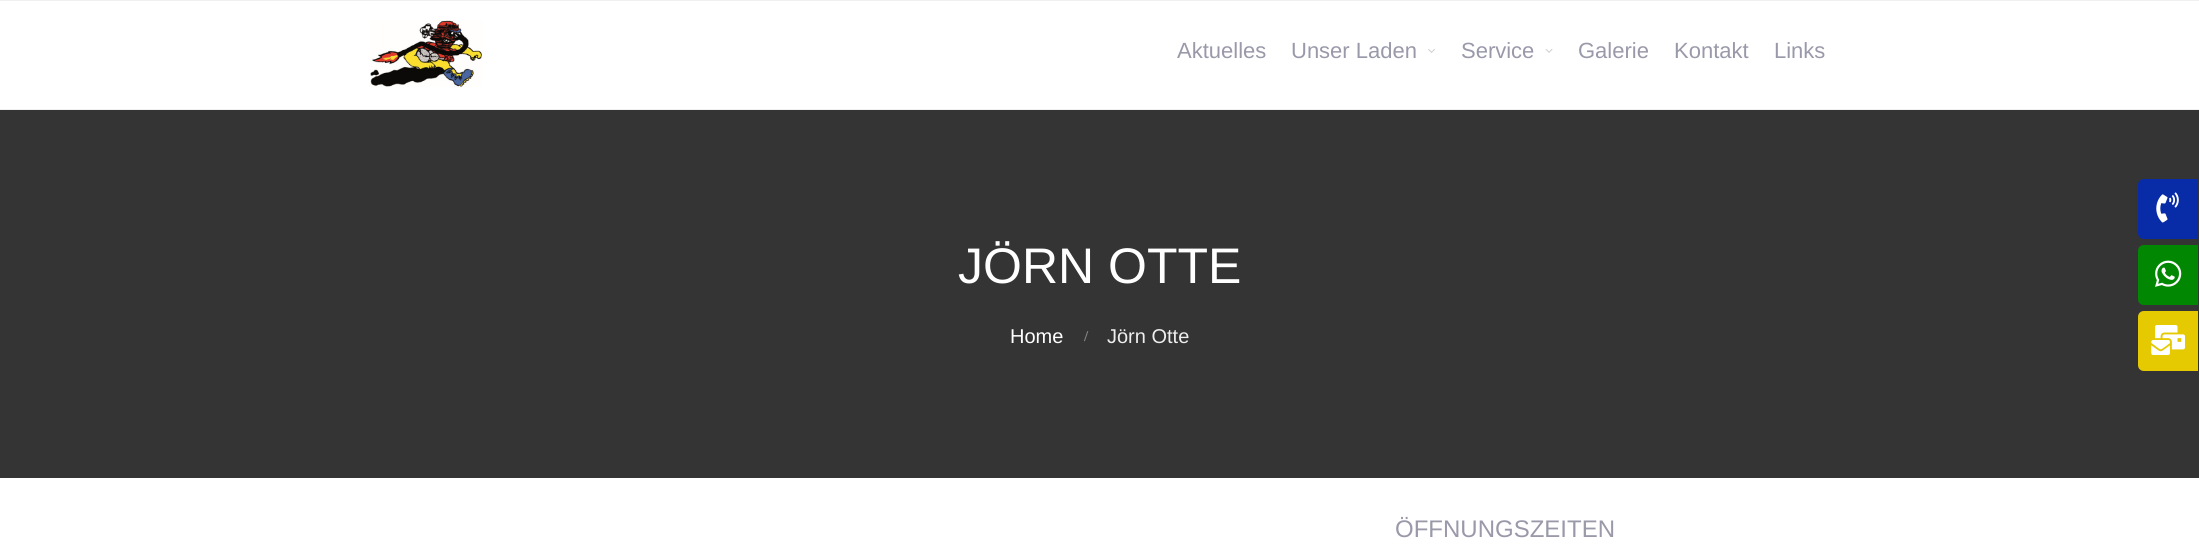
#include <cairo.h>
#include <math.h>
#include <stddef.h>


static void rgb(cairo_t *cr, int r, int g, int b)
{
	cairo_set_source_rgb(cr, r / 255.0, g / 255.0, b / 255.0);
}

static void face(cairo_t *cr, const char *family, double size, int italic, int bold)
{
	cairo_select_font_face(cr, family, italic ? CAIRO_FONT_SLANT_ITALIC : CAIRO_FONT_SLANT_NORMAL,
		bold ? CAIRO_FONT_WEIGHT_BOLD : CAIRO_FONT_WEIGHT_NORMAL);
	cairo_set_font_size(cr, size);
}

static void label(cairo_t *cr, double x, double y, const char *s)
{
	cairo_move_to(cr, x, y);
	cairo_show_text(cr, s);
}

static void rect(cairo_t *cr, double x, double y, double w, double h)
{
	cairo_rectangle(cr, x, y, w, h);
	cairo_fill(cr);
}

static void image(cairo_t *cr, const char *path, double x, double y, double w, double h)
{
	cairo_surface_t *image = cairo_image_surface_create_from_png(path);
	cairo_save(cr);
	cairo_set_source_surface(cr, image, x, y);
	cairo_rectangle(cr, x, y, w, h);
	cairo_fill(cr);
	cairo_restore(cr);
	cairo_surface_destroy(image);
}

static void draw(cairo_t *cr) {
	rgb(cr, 240, 240, 240);
	cairo_paint(cr);
	rgb(cr, 255, 255, 255);
	rect(cr, 0, 1, 2199, 108);
	image(cr, "image0.png", 370, 20, 113, 67);
	face(cr, "Liberation Sans", 22, 0, 0);
	rgb(cr, 153, 153, 170);
	label(cr, 1177, 58, "Aktuelles");
	label(cr, 1291, 58, "Unser Laden");
	image(cr, "image1.png", 1428, 49, 7, 4);
	label(cr, 1461, 58, "Service");
	image(cr, "image2.png", 1545, 49, 8, 4);
	label(cr, 1578, 58, "Galerie");
	label(cr, 1674, 58, "Kontakt");
	label(cr, 1774, 58, "Links");
	rgb(cr, 52, 52, 52);
	rect(cr, 0, 110, 2199, 368);
	face(cr, "Liberation Sans", 50, 0, 0);
	rgb(cr, 255, 255, 255);
	label(cr, 958, 283, "JÖRN OTTE");
	face(cr, "Liberation Sans", 20, 0, 0);
	label(cr, 1010, 343, "Home");
	face(cr, "Liberation Serif", 15, 0, 1);
	rgb(cr, 137, 137, 137);
	label(cr, 1084, 341, "/");
	face(cr, "Liberation Sans", 20, 0, 0);
	rgb(cr, 238, 238, 238);
	label(cr, 1107, 343, "Jörn Otte");
	rgb(cr, 255, 255, 255);
	rect(cr, 0, 478, 2199, 71);
	face(cr, "Liberation Sans", 24, 0, 0);
	rgb(cr, 153, 153, 170);
	label(cr, 1395, 537, "ÖFFNUNGSZEITEN");
	rgb(cr, 8, 43, 168);
	cairo_new_path(cr);
	cairo_move_to(cr, 2144, 179);
	cairo_line_to(cr, 2198, 179);
	cairo_line_to(cr, 2198, 239);
	cairo_line_to(cr, 2144, 239);
	cairo_curve_to(cr, 2140.5, 239, 2138, 236.5, 2138, 233);
	cairo_line_to(cr, 2138, 185);
	cairo_curve_to(cr, 2138, 181.5, 2140.5, 179, 2144, 179);
	cairo_close_path(cr);
	cairo_fill(cr);
	image(cr, "image3.png", 2156, 192, 23, 31);
	rgb(cr, 1, 135, 1);
	cairo_new_path(cr);
	cairo_move_to(cr, 2144, 245);
	cairo_line_to(cr, 2198, 245);
	cairo_line_to(cr, 2198, 305);
	cairo_line_to(cr, 2144, 305);
	cairo_curve_to(cr, 2140.5, 305, 2138, 302.5, 2138, 299);
	cairo_line_to(cr, 2138, 251);
	cairo_curve_to(cr, 2138, 247.5, 2140.5, 245, 2144, 245);
	cairo_close_path(cr);
	cairo_fill(cr);
	image(cr, "image4.png", 2155, 260, 27, 27);
	rgb(cr, 229, 202, 2);
	cairo_new_path(cr);
	cairo_move_to(cr, 2144, 311);
	cairo_line_to(cr, 2198, 311);
	cairo_line_to(cr, 2198, 371);
	cairo_line_to(cr, 2144, 371);
	cairo_curve_to(cr, 2140.5, 371, 2138, 368.5, 2138, 365);
	cairo_line_to(cr, 2138, 317);
	cairo_curve_to(cr, 2138, 313.5, 2140.5, 311, 2144, 311);
	cairo_close_path(cr);
	cairo_fill(cr);
	image(cr, "image5.png", 2151, 325, 34, 30);
}

int main(void) {
	cairo_surface_t *surface = cairo_image_surface_create(CAIRO_FORMAT_RGB24, 2199, 549);
	cairo_t *cr = cairo_create(surface);
	cairo_font_options_t *options = cairo_font_options_create();
	cairo_font_options_set_hint_metrics(options, CAIRO_HINT_METRICS_OFF);
	cairo_font_options_set_hint_style(options, CAIRO_HINT_STYLE_NONE);
	cairo_set_font_options(cr, options);
	cairo_set_miter_limit(cr, 4);
	draw(cr);
	cairo_surface_write_to_png(surface, "render.png");
	cairo_font_options_destroy(options);
	cairo_destroy(cr);
	cairo_surface_destroy(surface);
	return 0;
}
